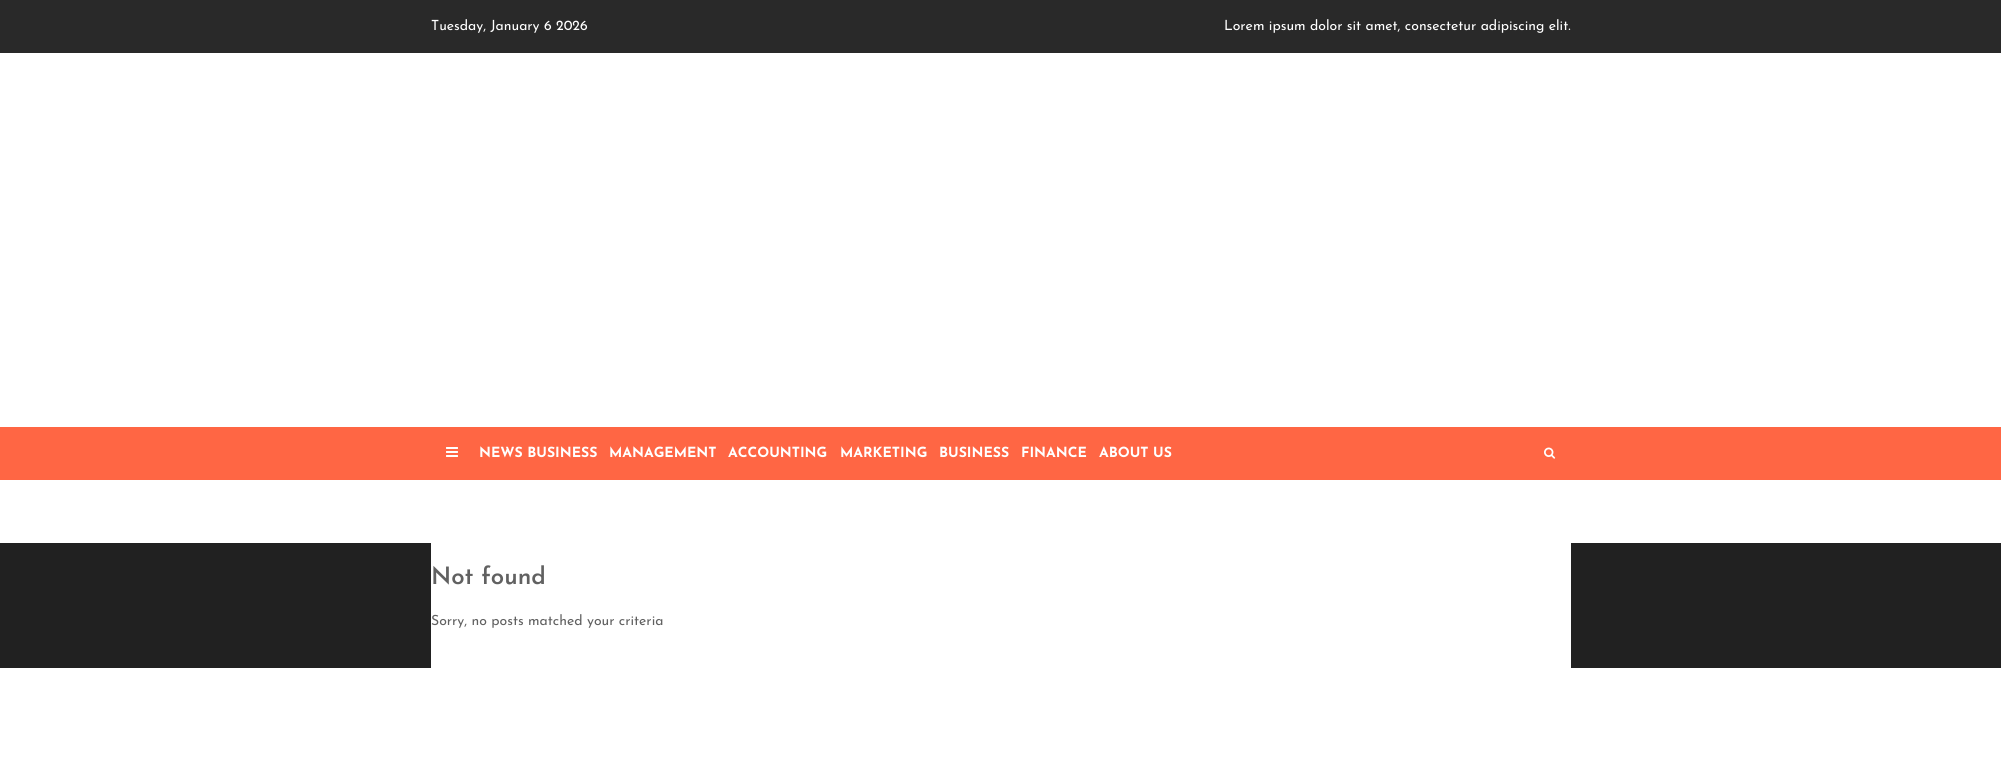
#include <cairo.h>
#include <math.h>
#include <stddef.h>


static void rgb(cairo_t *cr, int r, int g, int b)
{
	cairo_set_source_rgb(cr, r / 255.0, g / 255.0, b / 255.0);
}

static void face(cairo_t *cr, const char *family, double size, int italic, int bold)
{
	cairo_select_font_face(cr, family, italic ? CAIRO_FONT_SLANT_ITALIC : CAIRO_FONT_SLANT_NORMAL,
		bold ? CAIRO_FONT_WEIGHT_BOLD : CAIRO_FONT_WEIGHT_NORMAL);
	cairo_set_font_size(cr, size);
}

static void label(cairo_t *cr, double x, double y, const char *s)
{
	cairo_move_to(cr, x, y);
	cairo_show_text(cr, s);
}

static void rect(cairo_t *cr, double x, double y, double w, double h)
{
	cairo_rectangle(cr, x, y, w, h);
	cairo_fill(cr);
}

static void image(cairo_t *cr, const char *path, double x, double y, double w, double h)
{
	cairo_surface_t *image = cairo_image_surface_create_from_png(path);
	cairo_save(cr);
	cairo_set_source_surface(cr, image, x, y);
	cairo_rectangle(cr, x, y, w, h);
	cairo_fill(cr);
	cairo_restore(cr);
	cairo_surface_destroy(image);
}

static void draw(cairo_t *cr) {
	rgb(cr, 255, 255, 255);
	cairo_paint(cr);
	rgb(cr, 41, 41, 41);
	rect(cr, 0, 0, 2001, 53);
	face(cr, "Josefin Sans", 14, 0, 0);
	rgb(cr, 255, 255, 255);
	label(cr, 431, 30, "Tuesday, January 6 2026");
	label(cr, 1224, 30, "Lorem ipsum dolor sit amet, consectetur adipiscing elit.");
	rgb(cr, 255, 102, 68);
	rect(cr, 0, 427, 2001, 53);
	image(cr, "image0.png", 446, 447, 12, 10);
	face(cr, "Josefin Sans", 14, 0, 1);
	rgb(cr, 255, 255, 255);
	label(cr, 479, 457, "NEWS BUSINESS");
	label(cr, 609, 457, "MANAGEMENT");
	label(cr, 728, 457, "ACCOUNTING");
	label(cr, 840, 457, "MARKETING");
	label(cr, 939, 457, "BUSINESS");
	label(cr, 1021, 457, "FINANCE");
	label(cr, 1099, 457, "ABOUT US");
	image(cr, "image1.png", 1544, 447, 12, 12);
	rgb(cr, 33, 33, 33);
	rect(cr, 0, 543, 2001, 125);
	rgb(cr, 255, 255, 255);
	rect(cr, 431, 543, 1140, 125);
	face(cr, "Josefin Sans SemiBold", 24, 0, 0);
	rgb(cr, 97, 97, 97);
	label(cr, 431, 584, "Not found");
	face(cr, "Josefin Sans", 14, 0, 0);
	label(cr, 431, 625, "Sorry, no posts matched your criteria");
}

int main(void) {
	cairo_surface_t *surface = cairo_image_surface_create(CAIRO_FORMAT_RGB24, 2001, 770);
	cairo_t *cr = cairo_create(surface);
	cairo_font_options_t *options = cairo_font_options_create();
	cairo_font_options_set_hint_metrics(options, CAIRO_HINT_METRICS_OFF);
	cairo_font_options_set_hint_style(options, CAIRO_HINT_STYLE_NONE);
	cairo_set_font_options(cr, options);
	cairo_set_miter_limit(cr, 4);
	draw(cr);
	cairo_surface_write_to_png(surface, "render.png");
	cairo_font_options_destroy(options);
	cairo_destroy(cr);
	cairo_surface_destroy(surface);
	return 0;
}
